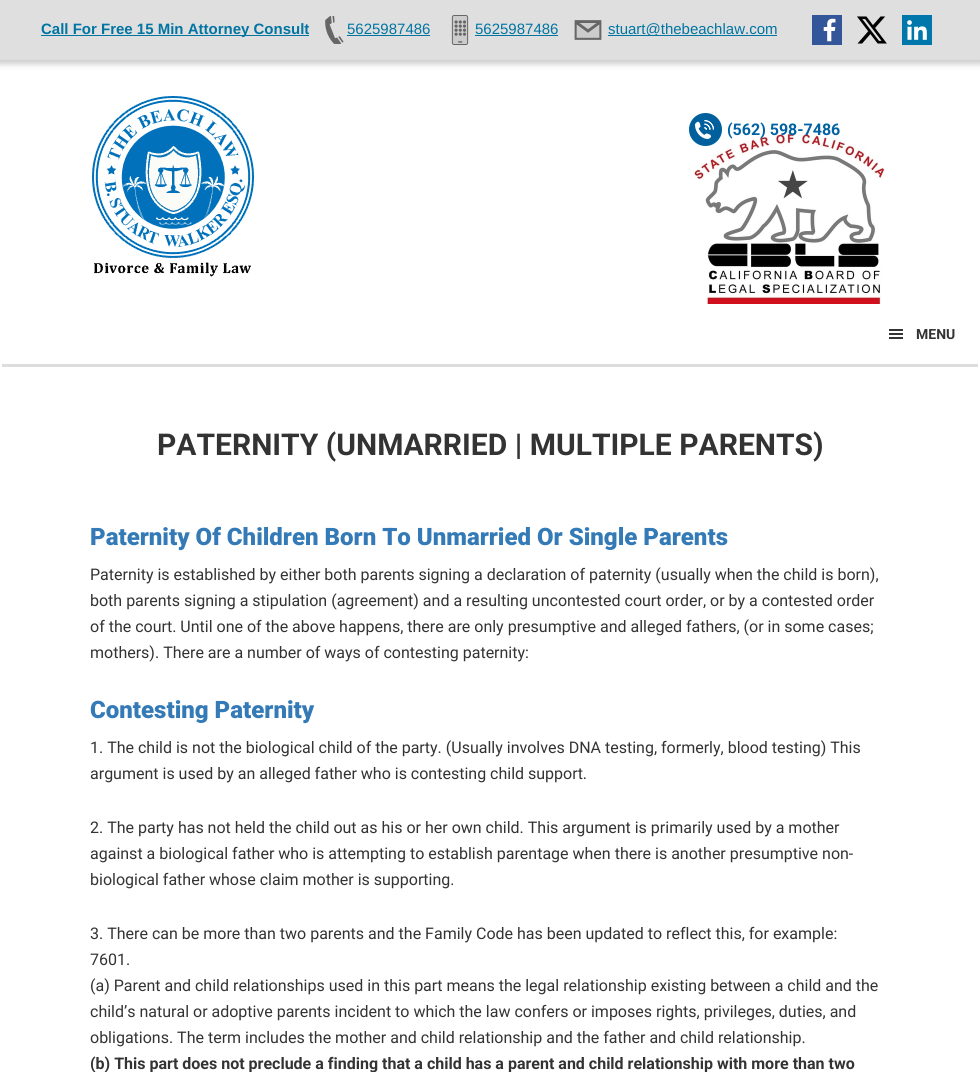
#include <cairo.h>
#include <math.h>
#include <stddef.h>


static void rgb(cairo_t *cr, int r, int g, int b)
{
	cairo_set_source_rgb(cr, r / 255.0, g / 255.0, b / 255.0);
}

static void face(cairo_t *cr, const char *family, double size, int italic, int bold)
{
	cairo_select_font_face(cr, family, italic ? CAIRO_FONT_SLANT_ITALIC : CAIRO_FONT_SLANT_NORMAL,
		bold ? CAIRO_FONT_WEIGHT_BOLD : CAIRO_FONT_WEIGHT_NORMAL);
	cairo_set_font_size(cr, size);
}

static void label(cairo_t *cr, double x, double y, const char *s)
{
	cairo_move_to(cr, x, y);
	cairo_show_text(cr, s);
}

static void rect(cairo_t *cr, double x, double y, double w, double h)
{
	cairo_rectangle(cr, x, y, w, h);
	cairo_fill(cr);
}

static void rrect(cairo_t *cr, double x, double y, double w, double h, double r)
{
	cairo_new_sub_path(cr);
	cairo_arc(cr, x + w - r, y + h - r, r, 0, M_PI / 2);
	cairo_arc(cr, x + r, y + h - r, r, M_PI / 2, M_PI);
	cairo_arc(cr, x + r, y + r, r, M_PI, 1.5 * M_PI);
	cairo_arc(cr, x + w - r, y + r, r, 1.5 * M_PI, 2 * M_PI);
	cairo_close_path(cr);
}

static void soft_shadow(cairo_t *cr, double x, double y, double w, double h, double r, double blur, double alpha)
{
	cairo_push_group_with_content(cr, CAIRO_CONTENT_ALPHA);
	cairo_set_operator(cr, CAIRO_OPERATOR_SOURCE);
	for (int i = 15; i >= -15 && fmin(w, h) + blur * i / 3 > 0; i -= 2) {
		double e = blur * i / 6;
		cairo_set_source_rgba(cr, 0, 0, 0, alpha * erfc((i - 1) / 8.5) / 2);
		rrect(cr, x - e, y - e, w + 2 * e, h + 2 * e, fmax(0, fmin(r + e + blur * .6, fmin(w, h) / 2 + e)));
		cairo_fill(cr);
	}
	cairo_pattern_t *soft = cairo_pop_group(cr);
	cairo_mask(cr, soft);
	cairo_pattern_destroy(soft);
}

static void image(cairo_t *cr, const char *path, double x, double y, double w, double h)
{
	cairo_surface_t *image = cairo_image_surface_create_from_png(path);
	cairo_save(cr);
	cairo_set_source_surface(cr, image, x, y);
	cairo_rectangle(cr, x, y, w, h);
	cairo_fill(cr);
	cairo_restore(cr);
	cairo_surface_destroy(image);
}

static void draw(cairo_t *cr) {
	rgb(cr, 255, 255, 255);
	cairo_paint(cr);
	rgb(cr, 204, 204, 204);
	soft_shadow(cr, -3, -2, 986, 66, 0, 3, 1);
	rgb(cr, 223, 223, 223);
	rect(cr, 0, 0, 980, 60);
	rgb(cr, 0, 116, 162);
	rect(cr, 41, 35, 268, 1);
	face(cr, "Liberation Sans", 15, 0, 1);
	label(cr, 41, 34, "Call For Free 15 Min Attorney Consult");
	image(cr, "image0.png", 325, 16, 19, 28);
	face(cr, "Liberation Sans", 15, 0, 0);
	label(cr, 347, 34, "5625987486");
	rect(cr, 347, 35, 83, 1);
	image(cr, "image1.png", 451, 15, 18, 30);
	label(cr, 475, 34, "5625987486");
	rect(cr, 475, 35, 83, 1);
	image(cr, "image2.png", 574, 20, 28, 20);
	rect(cr, 608, 35, 169, 1);
	label(cr, 608, 34, "stuart@thebeachlaw.com");
	image(cr, "image3.png", 812, 15, 30, 30);
	image(cr, "image4.png", 857, 16, 30, 28);
	image(cr, "image5.png", 902, 15, 30, 30);
	image(cr, "image6.png", 92, 96, 162, 181);
	image(cr, "image8.png", 690, 131, 195, 173);
	image(cr, "image7.png", 689, 113, 33, 33);
	face(cr, "Roboto", 16, 0, 1);
	rgb(cr, 0, 98, 161);
	label(cr, 727, 135, "(562) 598-7486");
	rgb(cr, 221, 221, 221);
	rect(cr, 2, 364, 976, 3);
	image(cr, "image9.png", 889, 329, 14, 10);
	face(cr, "Roboto", 14, 0, 1);
	rgb(cr, 51, 51, 51);
	label(cr, 916, 339, "MENU");
	face(cr, "Roboto", 30, 0, 1);
	label(cr, 157, 455, "PATERNITY (UNMARRIED | MULTIPLE PARENTS)");
	face(cr, "Roboto Black", 24, 0, 0);
	rgb(cr, 51, 122, 183);
	label(cr, 90, 545, "Paternity Of Children Born To Unmarried Or Single Parents");
	face(cr, "Roboto", 16, 0, 0);
	rgb(cr, 51, 51, 51);
	label(cr, 90, 580, "Paternity is established by either both parents signing a declaration of paternity (usually when the child is born),");
	label(cr, 90, 606, "both parents signing a stipulation (agreement) and a resulting uncontested court order, or by a contested order");
	label(cr, 90, 632, "of the court. Until one of the above happens, there are only presumptive and alleged fathers, (or in some cases;");
	label(cr, 90, 658, "mothers). There are a number of ways of contesting paternity:");
	face(cr, "Roboto Black", 24, 0, 0);
	rgb(cr, 51, 122, 183);
	label(cr, 90, 718, "Contesting Paternity");
	face(cr, "Roboto", 16, 0, 0);
	rgb(cr, 51, 51, 51);
	label(cr, 90, 753, "1. The child is not the biological child of the party. (Usually involves DNA testing, formerly, blood testing) This");
	label(cr, 90, 779, "argument is used by an alleged father who is contesting child support.");
	label(cr, 90, 833, "2. The party has not held the child out as his or her own child. This argument is primarily used by a mother");
	label(cr, 90, 859, "against a biological father who is attempting to establish parentage when there is another presumptive non-");
	label(cr, 90, 885, "biological father whose claim mother is supporting.");
	label(cr, 90, 939, "3. There can be more than two parents and the Family Code has been updated to reflect this, for example:");
	label(cr, 90, 965, "7601.");
	label(cr, 90, 991, "(a) Parent and child relationships used in this part means the legal relationship existing between a child and the");
	label(cr, 90, 1017, "child’s natural or adoptive parents incident to which the law confers or imposes rights, privileges, duties, and");
	label(cr, 90, 1043, "obligations. The term includes the mother and child relationship and the father and child relationship.");
	face(cr, "Roboto", 16, 0, 1);
	label(cr, 90, 1069, "(b) This part does not preclude a finding that a child has a parent and child relationship with more than two");
}

int main(void) {
	cairo_surface_t *surface = cairo_image_surface_create(CAIRO_FORMAT_RGB24, 980, 1072);
	cairo_t *cr = cairo_create(surface);
	cairo_font_options_t *options = cairo_font_options_create();
	cairo_font_options_set_hint_metrics(options, CAIRO_HINT_METRICS_OFF);
	cairo_font_options_set_hint_style(options, CAIRO_HINT_STYLE_NONE);
	cairo_set_font_options(cr, options);
	cairo_set_miter_limit(cr, 4);
	draw(cr);
	cairo_surface_write_to_png(surface, "render.png");
	cairo_font_options_destroy(options);
	cairo_destroy(cr);
	cairo_surface_destroy(surface);
	return 0;
}
